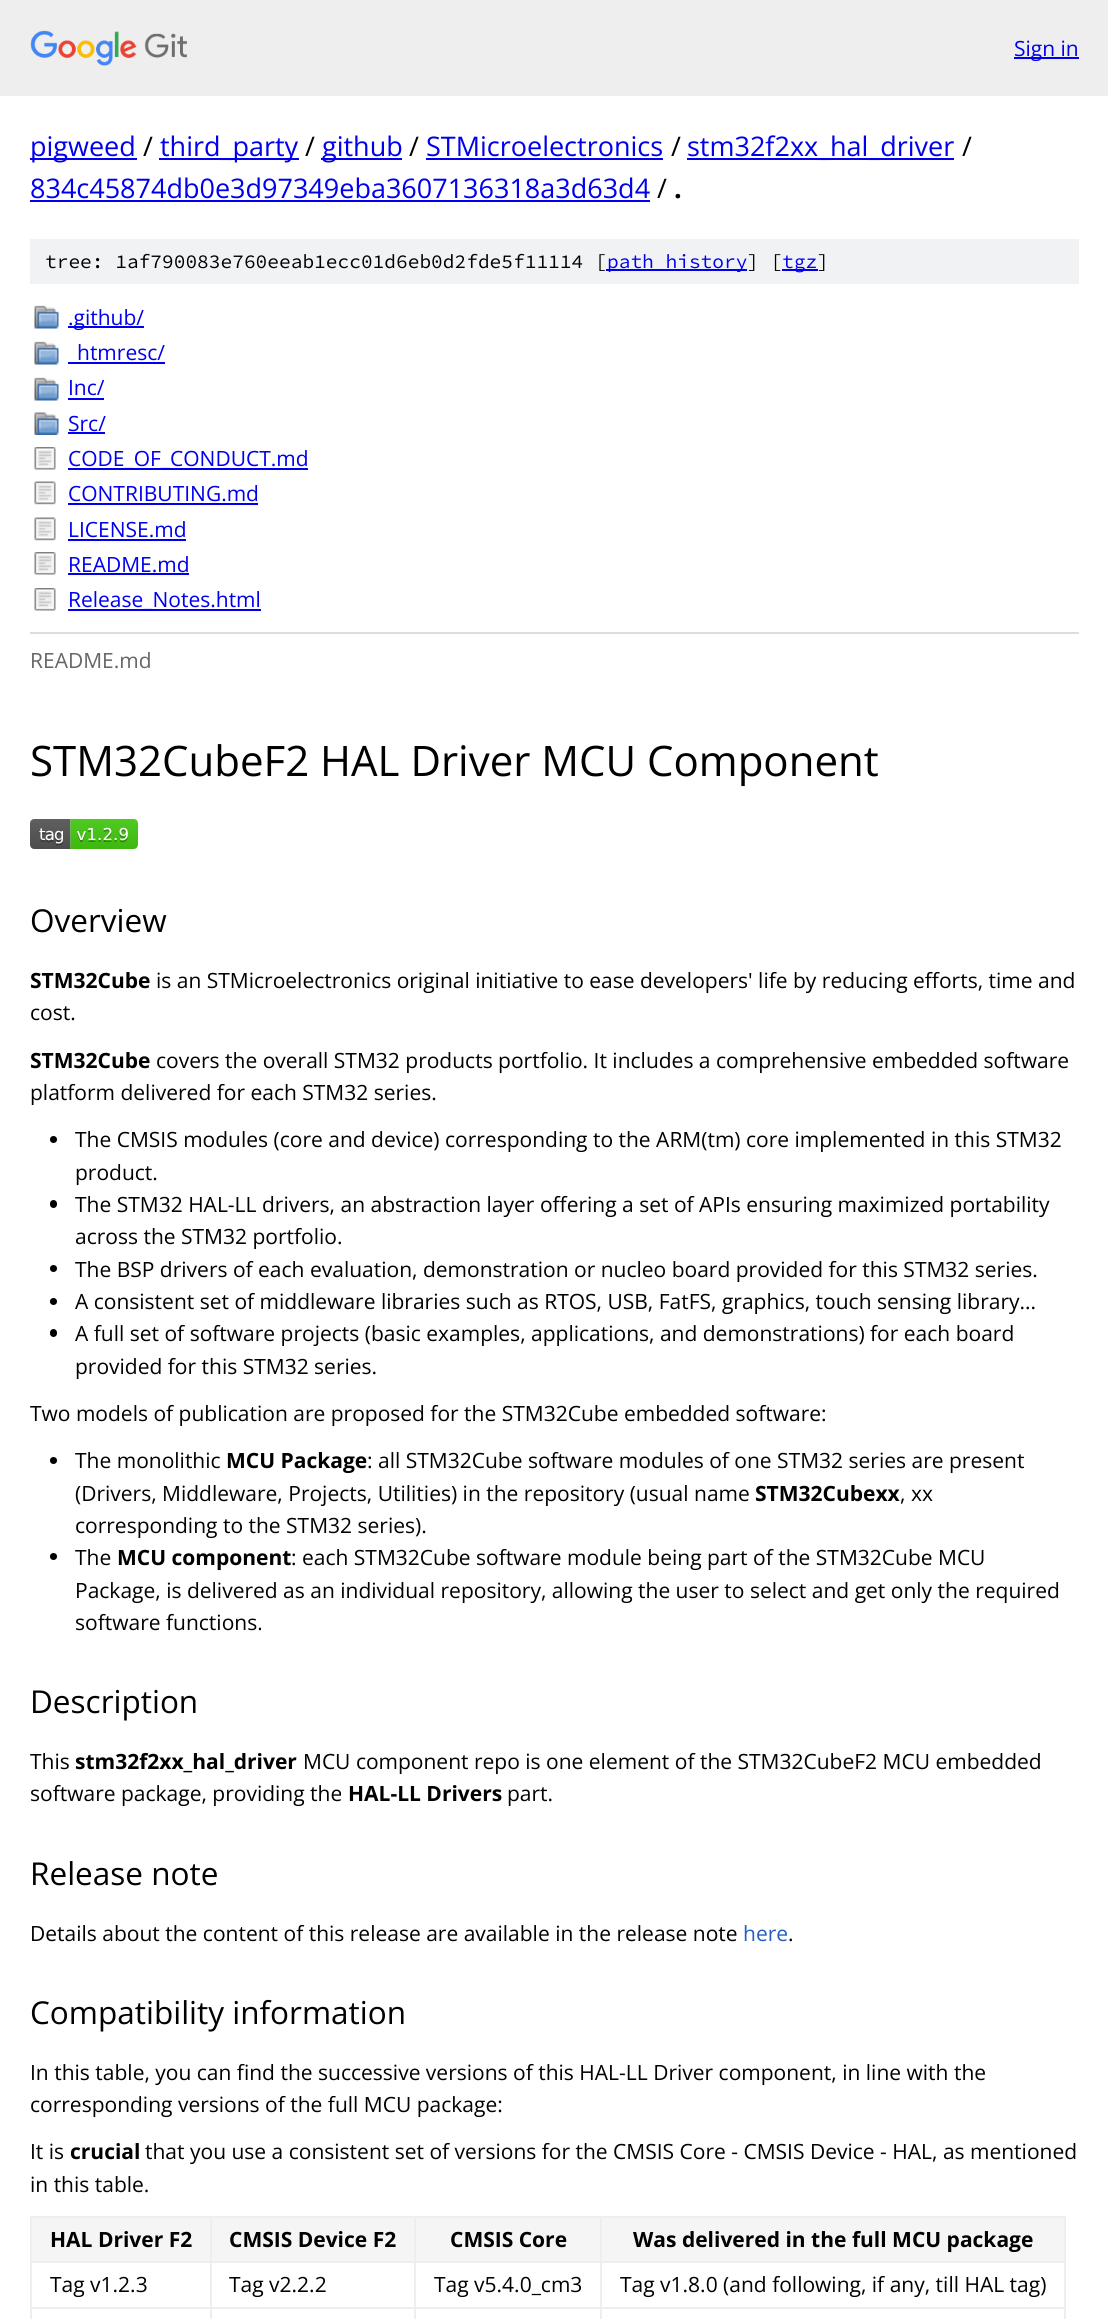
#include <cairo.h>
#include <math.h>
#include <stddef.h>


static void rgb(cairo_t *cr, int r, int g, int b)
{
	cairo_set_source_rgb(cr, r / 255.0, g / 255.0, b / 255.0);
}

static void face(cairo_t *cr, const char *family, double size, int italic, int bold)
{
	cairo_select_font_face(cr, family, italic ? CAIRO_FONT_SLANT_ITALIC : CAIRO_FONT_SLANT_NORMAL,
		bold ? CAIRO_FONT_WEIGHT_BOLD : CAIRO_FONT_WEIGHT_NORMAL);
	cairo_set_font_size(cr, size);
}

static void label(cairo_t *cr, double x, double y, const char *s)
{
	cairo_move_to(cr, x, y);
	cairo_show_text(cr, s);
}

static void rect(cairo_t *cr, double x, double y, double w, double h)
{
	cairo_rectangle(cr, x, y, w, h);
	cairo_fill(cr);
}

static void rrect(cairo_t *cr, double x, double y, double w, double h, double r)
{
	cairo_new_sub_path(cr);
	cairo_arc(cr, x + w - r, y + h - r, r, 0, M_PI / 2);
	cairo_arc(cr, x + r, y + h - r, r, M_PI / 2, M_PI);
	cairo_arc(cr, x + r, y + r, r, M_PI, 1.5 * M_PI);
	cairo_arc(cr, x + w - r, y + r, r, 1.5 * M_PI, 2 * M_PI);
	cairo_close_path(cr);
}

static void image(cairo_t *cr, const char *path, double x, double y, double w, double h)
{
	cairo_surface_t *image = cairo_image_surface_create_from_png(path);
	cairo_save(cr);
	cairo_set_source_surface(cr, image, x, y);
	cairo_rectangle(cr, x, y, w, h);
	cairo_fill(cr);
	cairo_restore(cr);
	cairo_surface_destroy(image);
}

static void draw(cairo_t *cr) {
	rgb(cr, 255, 255, 255);
	cairo_paint(cr);
	rgb(cr, 238, 238, 238);
	rect(cr, 0, 0, 1108, 96);
	image(cr, "image0.png", 30, 30, 157, 36);
	rgb(cr, 0, 0, 238);
	rect(cr, 1014, 57, 65, 2);
	face(cr, "Open Sans", 21, 0, 0);
	label(cr, 1014, 56, "Sign in");
	rect(cr, 30, 158, 107, 2);
	face(cr, "Open Sans", 27, 0, 0);
	label(cr, 30, 156, "pigweed");
	rgb(cr, 0, 0, 0);
	label(cr, 143, 156, "/");
	rgb(cr, 0, 0, 238);
	rect(cr, 159, 158, 140, 2);
	label(cr, 160, 156, "third_party");
	rgb(cr, 0, 0, 0);
	label(cr, 305, 156, "/");
	rgb(cr, 0, 0, 238);
	rect(cr, 321, 158, 81, 2);
	label(cr, 322, 156, "github");
	rgb(cr, 0, 0, 0);
	label(cr, 409, 156, "/");
	rgb(cr, 0, 0, 238);
	label(cr, 426, 156, "STMicroelectronics");
	rect(cr, 426, 158, 237, 2);
	rgb(cr, 0, 0, 0);
	label(cr, 671, 156, "/");
	rgb(cr, 0, 0, 238);
	rect(cr, 687, 158, 267, 2);
	label(cr, 687, 156, "stm32f2xx_hal_driver");
	rgb(cr, 0, 0, 0);
	label(cr, 962, 156, "/");
	rgb(cr, 0, 0, 238);
	label(cr, 30, 198, "834c45874db0e3d97349eba3607136318a3d63d4");
	rect(cr, 30, 200, 620, 2);
	rgb(cr, 0, 0, 0);
	label(cr, 657, 198, "/");
	face(cr, "Open Sans", 27, 0, 1);
	label(cr, 674, 198, ".");
	rgb(cr, 241, 242, 243);
	rect(cr, 30, 239, 1049, 45);
	face(cr, "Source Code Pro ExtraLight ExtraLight", 19.5, 0, 0);
	rgb(cr, 0, 0, 0);
	label(cr, 45, 268, "tree: 1af790083e760eeab1ecc01d6eb0d2fde5f11114 [");
	rgb(cr, 0, 0, 238);
	rect(cr, 606, 269, 141, 2);
	label(cr, 607, 268, "path history");
	rgb(cr, 0, 0, 0);
	label(cr, 747, 268, "] [");
	rgb(cr, 0, 0, 238);
	rect(cr, 782, 269, 36, 2);
	label(cr, 782, 268, "tgz");
	rgb(cr, 0, 0, 0);
	label(cr, 817, 268, "]");
	image(cr, "image1.png", 34, 305, 25, 24);
	rgb(cr, 0, 0, 238);
	rect(cr, 68, 326, 76, 2);
	face(cr, "Open Sans", 21, 0, 0);
	label(cr, 68, 325, ".github/");
	image(cr, "image1.png", 34, 341, 25, 24);
	label(cr, 77, 360, "htmresc/");
	rect(cr, 68, 362, 97, 2);
	image(cr, "image1.png", 34, 377, 25, 24);
	label(cr, 68, 395, "Inc/");
	rect(cr, 68, 398, 36, 2);
	image(cr, "image2.png", 34, 412, 25, 23);
	label(cr, 68, 431, "Src/");
	rect(cr, 68, 432, 37, 2);
	image(cr, "image3.png", 34, 447, 22, 23);
	rect(cr, 68, 468, 240, 2);
	label(cr, 68, 466, "CODE_OF_CONDUCT.md");
	image(cr, "image4.png", 34, 481, 22, 24);
	label(cr, 68, 501, "CONTRIBUTING.md");
	rect(cr, 68, 503, 190, 2);
	image(cr, "image4.png", 34, 517, 22, 24);
	label(cr, 68, 537, "LICENSE.md");
	rect(cr, 68, 539, 118, 2);
	image(cr, "image3.png", 34, 552, 22, 23);
	label(cr, 68, 572, "README.md");
	rect(cr, 68, 573, 121, 2);
	image(cr, "image3.png", 34, 588, 22, 23);
	rect(cr, 68, 609, 193, 2);
	label(cr, 68, 607, "Release_Notes.html");
	rgb(cr, 221, 221, 221);
	rect(cr, 30, 632, 1049, 2);
	rgb(cr, 102, 102, 102);
	label(cr, 30, 668, "README.md");
	face(cr, "Open Sans", 42, 0, 0);
	rgb(cr, 0, 0, 0);
	label(cr, 30, 776, "STM32CubeF2 HAL Driver MCU Component");
	image(cr, "image5.png", 30, 819, 108, 30);
	face(cr, "Open Sans", 31.5, 0, 0);
	label(cr, 30, 932, "Overview");
	face(cr, "Open Sans", 21, 0, 1);
	label(cr, 30, 988, "STM32Cube");
	face(cr, "Open Sans", 21, 0, 0);
	label(cr, 156, 988, "is an STMicroelectronics original initiative to ease developers' life by reducing efforts, time and");
	label(cr, 30, 1020, "cost.");
	face(cr, "Open Sans", 21, 0, 1);
	label(cr, 30, 1068, "STM32Cube");
	face(cr, "Open Sans", 21, 0, 0);
	label(cr, 156, 1068, "covers the overall STM32 products portfolio. It includes a comprehensive embedded software");
	label(cr, 30, 1100, "platform delivered for each STM32 series.");
	cairo_new_path(cr);
	cairo_arc(cr, 53.5, 1139.5, 3.5, 0, 2 * M_PI);
	cairo_fill(cr);
	label(cr, 75, 1147, "The CMSIS modules (core and device) corresponding to the ARM(tm) core implemented in this STM32");
	label(cr, 75, 1180, "product.");
	rrect(cr, 50, 1200, 7, 8, 3.5);
	cairo_fill(cr);
	label(cr, 75, 1212, "The STM32 HAL-LL drivers, an abstraction layer offering a set of APIs ensuring maximized portability");
	label(cr, 75, 1244, "across the STM32 portfolio.");
	cairo_new_path(cr);
	cairo_arc(cr, 53.5, 1268.5, 3.5, 0, 2 * M_PI);
	cairo_fill(cr);
	label(cr, 75, 1277, "The BSP drivers of each evaluation, demonstration or nucleo board provided for this STM32 series.");
	cairo_new_path(cr);
	cairo_arc(cr, 53.5, 1301.5, 3.5, 0, 2 * M_PI);
	cairo_fill(cr);
	label(cr, 75, 1309, "A consistent set of middleware libraries such as RTOS, USB, FatFS, graphics, touch sensing library...");
	rrect(cr, 50, 1329, 7, 8, 3.5);
	cairo_fill(cr);
	label(cr, 75, 1341, "A full set of software projects (basic examples, applications, and demonstrations) for each board");
	label(cr, 75, 1374, "provided for this STM32 series.");
	label(cr, 30, 1421, "Two models of publication are proposed for the STM32Cube embedded software:");
	cairo_new_path(cr);
	cairo_arc(cr, 53.5, 1460.5, 3.5, 0, 2 * M_PI);
	cairo_fill(cr);
	label(cr, 75, 1468, "The monolithic");
	face(cr, "Open Sans", 21, 0, 1);
	label(cr, 226, 1468, "MCU Package");
	face(cr, "Open Sans", 21, 0, 0);
	label(cr, 367, 1468, ": all STM32Cube software modules of one STM32 series are present");
	label(cr, 75, 1501, "(Drivers, Middleware, Projects, Utilities) in the repository (usual name");
	face(cr, "Open Sans", 21, 0, 1);
	label(cr, 755, 1501, "STM32Cubexx");
	face(cr, "Open Sans", 21, 0, 0);
	label(cr, 900, 1501, ", xx");
	label(cr, 75, 1533, "corresponding to the STM32 series).");
	cairo_new_path(cr);
	cairo_arc(cr, 53.5, 1556.5, 3.5, 0, 2 * M_PI);
	cairo_fill(cr);
	label(cr, 75, 1565, "The");
	face(cr, "Open Sans", 21, 0, 1);
	label(cr, 117, 1565, "MCU component");
	face(cr, "Open Sans", 21, 0, 0);
	label(cr, 291, 1565, ": each STM32Cube software module being part of the STM32Cube MCU");
	label(cr, 75, 1598, "Package, is delivered as an individual repository, allowing the user to select and get only the required");
	label(cr, 75, 1630, "software functions.");
	face(cr, "Open Sans", 31.5, 0, 0);
	label(cr, 30, 1713, "Description");
	face(cr, "Open Sans", 21, 0, 0);
	label(cr, 30, 1769, "This");
	face(cr, "Open Sans", 21, 0, 1);
	label(cr, 75, 1769, "stm32f2xx_hal_driver");
	face(cr, "Open Sans", 21, 0, 0);
	label(cr, 303, 1769, "MCU component repo is one element of the STM32CubeF2 MCU embedded");
	label(cr, 30, 1801, "software package, providing the");
	face(cr, "Open Sans", 21, 0, 1);
	label(cr, 348, 1801, "HAL-LL Drivers");
	face(cr, "Open Sans", 21, 0, 0);
	label(cr, 507, 1801, "part.");
	face(cr, "Open Sans", 31.5, 0, 0);
	label(cr, 30, 1885, "Release note");
	face(cr, "Open Sans", 21, 0, 0);
	label(cr, 30, 1941, "Details about the content of this release are available in the release note");
	rgb(cr, 36, 93, 193);
	label(cr, 743, 1941, "here");
	rgb(cr, 0, 0, 0);
	label(cr, 788, 1941, ".");
	face(cr, "Open Sans", 31.5, 0, 0);
	label(cr, 30, 2024, "Compatibility information");
	face(cr, "Open Sans", 21, 0, 0);
	label(cr, 30, 2080, "In this table, you can find the successive versions of this HAL-LL Driver component, in line with the");
	label(cr, 30, 2112, "corresponding versions of the full MCU package:");
	label(cr, 30, 2159, "It is");
	face(cr, "Open Sans", 21, 0, 1);
	label(cr, 70, 2159, "crucial");
	face(cr, "Open Sans", 21, 0, 0);
	label(cr, 145, 2159, "that you use a consistent set of versions for the CMSIS Core - CMSIS Device - HAL, as mentioned");
	label(cr, 30, 2192, "in this table.");
	rgb(cr, 245, 245, 245);
	rect(cr, 32, 2218, 178, 43);
	rgb(cr, 238, 238, 238);
	rect(cr, 600, 2216, 465, 2);
	rect(cr, 600, 2261, 465, 2);
	rect(cr, 600, 2307, 465, 2);
	rect(cr, 600, 2307, 2, 12);
	rect(cr, 414, 2307, 188, 2);
	rect(cr, 600, 2261, 2, 48);
	rect(cr, 414, 2261, 188, 2);
	rect(cr, 600, 2216, 2, 46);
	rect(cr, 414, 2216, 188, 2);
	rect(cr, 414, 2307, 2, 12);
	rect(cr, 210, 2307, 206, 2);
	rect(cr, 414, 2261, 2, 48);
	rect(cr, 210, 2261, 206, 2);
	rect(cr, 414, 2216, 2, 46);
	rect(cr, 210, 2216, 206, 2);
	rect(cr, 210, 2307, 2, 12);
	rect(cr, 30, 2307, 182, 2);
	rect(cr, 210, 2261, 2, 48);
	rect(cr, 30, 2261, 182, 2);
	rect(cr, 210, 2216, 2, 46);
	rect(cr, 30, 2216, 182, 2);
	rect(cr, 30, 2307, 2, 12);
	rect(cr, 30, 2261, 2, 48);
	rect(cr, 30, 2216, 2, 46);
	face(cr, "Open Sans", 21, 0, 1);
	rgb(cr, 0, 0, 0);
	label(cr, 50, 2247, "HAL Driver F2");
	rgb(cr, 245, 245, 245);
	rect(cr, 212, 2218, 202, 43);
	rgb(cr, 0, 0, 0);
	label(cr, 229, 2247, "CMSIS Device F2");
	rgb(cr, 245, 245, 245);
	rect(cr, 416, 2218, 184, 43);
	rgb(cr, 0, 0, 0);
	label(cr, 450, 2247, "CMSIS Core");
	rgb(cr, 245, 245, 245);
	rect(cr, 602, 2218, 462, 43);
	rgb(cr, 238, 238, 238);
	rect(cr, 1064, 2307, 2, 12);
	rect(cr, 1064, 2261, 2, 48);
	rect(cr, 1064, 2216, 2, 46);
	rgb(cr, 0, 0, 0);
	label(cr, 633, 2247, "Was delivered in the full MCU package");
	face(cr, "Open Sans", 21, 0, 0);
	label(cr, 50, 2292, "Tag v1.2.3");
	label(cr, 229, 2292, "Tag v2.2.2");
	label(cr, 434, 2292, "Tag v5.4.0_cm3");
	label(cr, 620, 2292, "Tag v1.8.0 (and following, if any, till HAL tag)");
}

int main(void) {
	cairo_surface_t *surface = cairo_image_surface_create(CAIRO_FORMAT_RGB24, 1108, 2319);
	cairo_t *cr = cairo_create(surface);
	cairo_font_options_t *options = cairo_font_options_create();
	cairo_font_options_set_hint_metrics(options, CAIRO_HINT_METRICS_OFF);
	cairo_font_options_set_hint_style(options, CAIRO_HINT_STYLE_NONE);
	cairo_set_font_options(cr, options);
	cairo_set_miter_limit(cr, 4);
	draw(cr);
	cairo_surface_write_to_png(surface, "render.png");
	cairo_font_options_destroy(options);
	cairo_destroy(cr);
	cairo_surface_destroy(surface);
	return 0;
}
